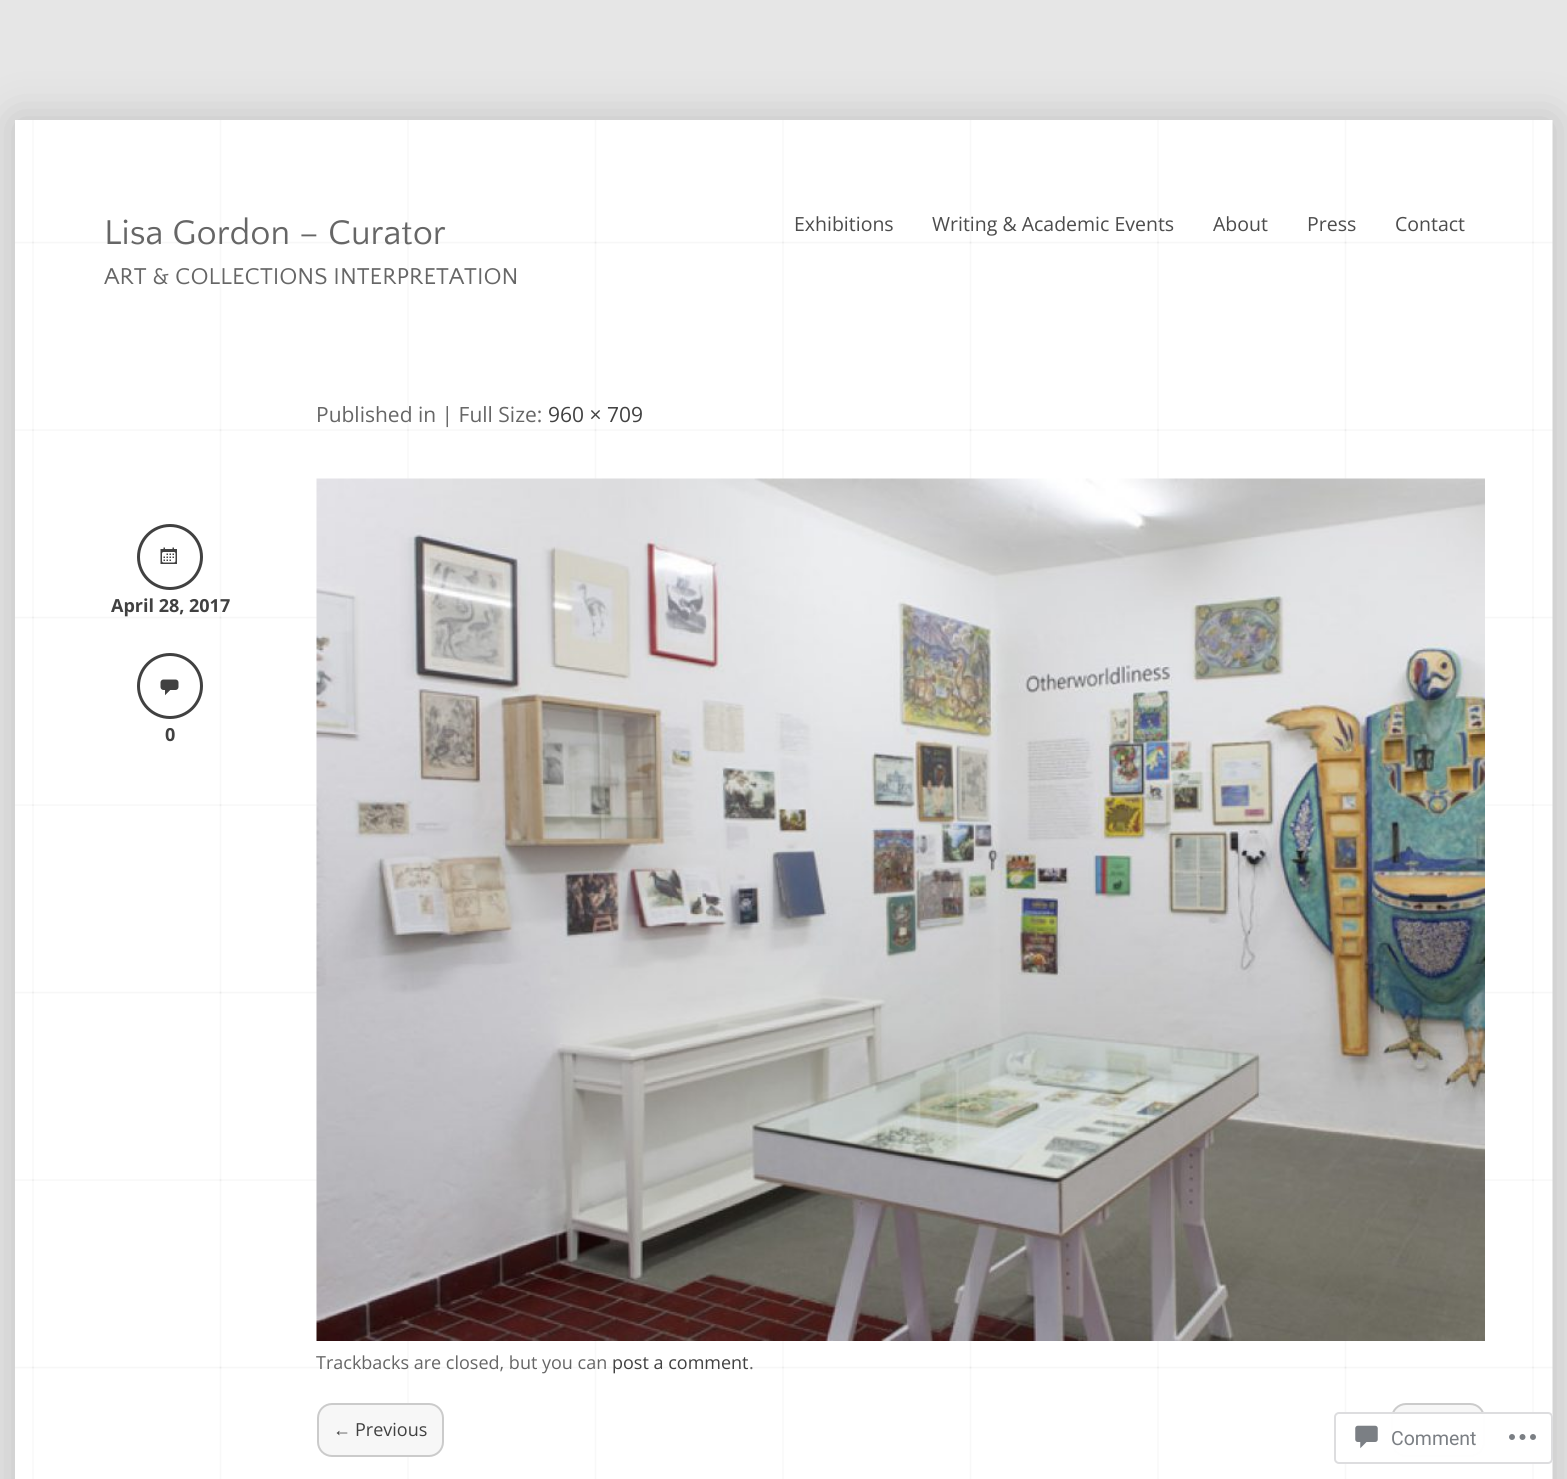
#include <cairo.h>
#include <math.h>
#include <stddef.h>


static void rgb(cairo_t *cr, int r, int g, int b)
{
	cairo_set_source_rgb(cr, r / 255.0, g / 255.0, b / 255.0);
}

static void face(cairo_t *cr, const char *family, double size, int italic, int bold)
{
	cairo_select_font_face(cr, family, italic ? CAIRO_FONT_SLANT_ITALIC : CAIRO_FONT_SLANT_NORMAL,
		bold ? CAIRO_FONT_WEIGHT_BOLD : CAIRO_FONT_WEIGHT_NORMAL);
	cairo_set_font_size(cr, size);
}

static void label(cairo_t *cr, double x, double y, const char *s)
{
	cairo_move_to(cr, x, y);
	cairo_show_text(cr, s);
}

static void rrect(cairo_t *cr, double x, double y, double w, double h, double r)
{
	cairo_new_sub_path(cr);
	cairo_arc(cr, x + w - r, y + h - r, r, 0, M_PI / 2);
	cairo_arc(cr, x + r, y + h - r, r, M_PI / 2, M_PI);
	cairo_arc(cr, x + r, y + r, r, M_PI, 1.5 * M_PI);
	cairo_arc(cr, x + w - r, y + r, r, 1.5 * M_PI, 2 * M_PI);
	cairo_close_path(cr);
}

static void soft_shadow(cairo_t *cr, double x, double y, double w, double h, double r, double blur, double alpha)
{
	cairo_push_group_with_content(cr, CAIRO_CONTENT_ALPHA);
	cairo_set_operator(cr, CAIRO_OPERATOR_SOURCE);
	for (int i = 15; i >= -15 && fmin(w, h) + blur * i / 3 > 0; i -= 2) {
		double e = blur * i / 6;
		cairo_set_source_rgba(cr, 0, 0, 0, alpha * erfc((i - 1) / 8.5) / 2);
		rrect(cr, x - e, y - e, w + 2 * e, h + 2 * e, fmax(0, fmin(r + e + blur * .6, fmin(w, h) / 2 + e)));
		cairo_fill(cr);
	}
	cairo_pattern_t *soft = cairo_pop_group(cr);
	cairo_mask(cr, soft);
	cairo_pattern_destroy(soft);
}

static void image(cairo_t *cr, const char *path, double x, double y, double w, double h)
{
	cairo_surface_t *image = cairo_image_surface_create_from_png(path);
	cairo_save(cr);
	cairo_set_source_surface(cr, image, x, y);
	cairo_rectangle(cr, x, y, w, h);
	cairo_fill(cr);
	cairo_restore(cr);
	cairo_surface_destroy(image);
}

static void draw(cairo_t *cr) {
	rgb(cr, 230, 230, 230);
	cairo_paint(cr);
	rgb(cr, 100, 100, 100);
	soft_shadow(cr, 15, 120, 1538, 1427, 0, 22.5, 0.3);
	image(cr, "image0.png", 15, 120, 1538, 1359);
	face(cr, "Quattrocento Sans", 36, 0, 0);
	rgb(cr, 102, 102, 102);
	label(cr, 104, 244, "Lisa Gordon – Curator");
	face(cr, "Quattrocento Sans", 24, 0, 0);
	label(cr, 104, 284, "ART & COLLECTIONS INTERPRETATION");
	face(cr, "Open Sans", 19.5, 0, 0);
	rgb(cr, 76, 76, 76);
	label(cr, 794, 231, "Exhibitions");
	label(cr, 932, 231, "Writing & Academic Events");
	label(cr, 1213, 231, "About");
	label(cr, 1307, 231, "Press");
	label(cr, 1395, 231, "Contact");
	face(cr, "Open Sans", 21, 0, 0);
	rgb(cr, 102, 102, 102);
	label(cr, 316, 422, "Published in | Full Size:");
	rgb(cr, 65, 65, 65);
	label(cr, 548, 422, "960 × 709");
	cairo_new_path(cr);
	cairo_arc(cr, 170, 557, 31.5, 0, 2 * M_PI);
	cairo_set_line_width(cr, 3);
	cairo_stroke(cr);
	image(cr, "image1.png", 160, 547, 17, 17);
	face(cr, "Open Sans", 18, 0, 1);
	label(cr, 111, 612, "April 28, 2017");
	cairo_new_path(cr);
	cairo_arc(cr, 170, 686, 31.5, 0, 2 * M_PI);
	cairo_stroke(cr);
	image(cr, "image2.png", 160, 679, 19, 17);
	label(cr, 165, 741, "0");
	image(cr, "image3.png", 316, 478, 1169, 863);
	face(cr, "Open Sans", 18, 0, 0);
	rgb(cr, 102, 102, 102);
	label(cr, 316, 1369, "Trackbacks are closed, but you can");
	rgb(cr, 65, 65, 65);
	label(cr, 612, 1369, "post a comment");
	rgb(cr, 102, 102, 102);
	label(cr, 749, 1369, ".");
	rgb(cr, 247, 247, 247);
	rrect(cr, 318, 1404, 125, 52, 14);
	cairo_fill_preserve(cr);
	rgb(cr, 203, 203, 203);
	cairo_set_line_width(cr, 2);
	cairo_stroke(cr);
	face(cr, "Liberation Sans", 18, 0, 0);
	rgb(cr, 65, 65, 65);
	label(cr, 333, 1436, "←");
	face(cr, "Open Sans", 18, 0, 0);
	label(cr, 355, 1436, "Previous");
	rgb(cr, 247, 247, 247);
	rrect(cr, 1392, 1404, 92, 52, 14);
	cairo_fill_preserve(cr);
	rgb(cr, 203, 203, 203);
	cairo_stroke(cr);
	cairo_set_source_rgba(cr, 1, 1, 1, 0.98);
	rrect(cr, 1334, 1412, 219, 52, 5);
	cairo_fill(cr);
	rrect(cr, 1335, 1413, 217, 50, 4);
	cairo_set_source_rgba(cr, 0.863, 0.863, 0.871, 0.98);
	cairo_stroke(cr);
	image(cr, "image4.png", 1355, 1425, 23, 24);
	face(cr, "Roboto", 19.5, 0, 0);
	rgb(cr, 123, 127, 132);
	label(cr, 1391, 1445, "Comment");
	image(cr, "image5.png", 1509, 1434, 27, 6);
}

int main(void) {
	cairo_surface_t *surface = cairo_image_surface_create(CAIRO_FORMAT_RGB24, 1567, 1479);
	cairo_t *cr = cairo_create(surface);
	cairo_font_options_t *options = cairo_font_options_create();
	cairo_font_options_set_hint_metrics(options, CAIRO_HINT_METRICS_OFF);
	cairo_font_options_set_hint_style(options, CAIRO_HINT_STYLE_NONE);
	cairo_set_font_options(cr, options);
	cairo_set_miter_limit(cr, 4);
	draw(cr);
	cairo_surface_write_to_png(surface, "render.png");
	cairo_font_options_destroy(options);
	cairo_destroy(cr);
	cairo_surface_destroy(surface);
	return 0;
}
